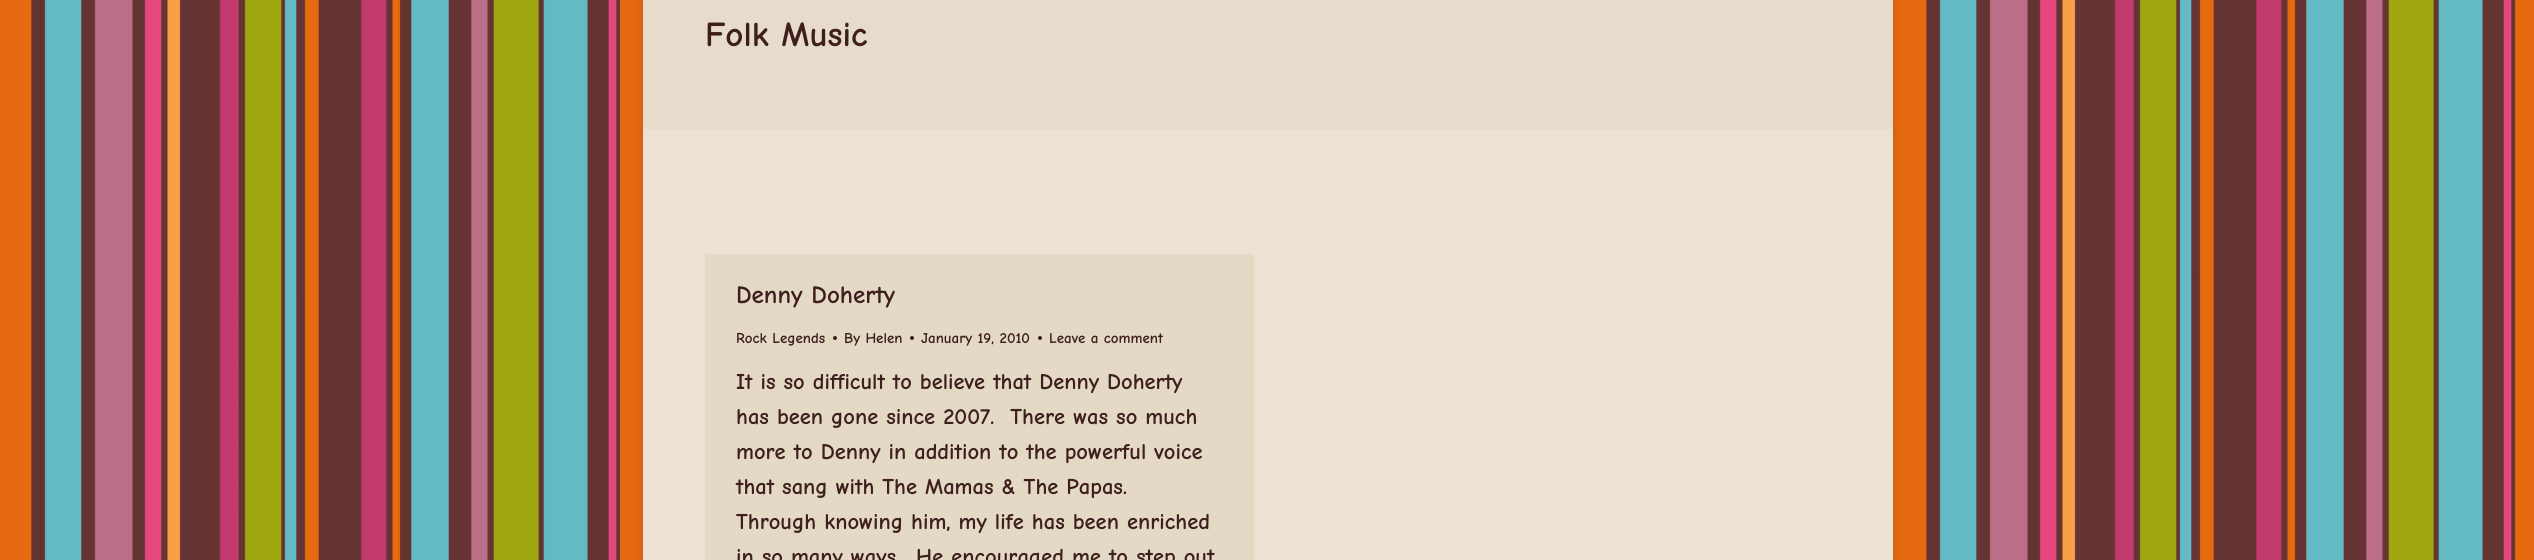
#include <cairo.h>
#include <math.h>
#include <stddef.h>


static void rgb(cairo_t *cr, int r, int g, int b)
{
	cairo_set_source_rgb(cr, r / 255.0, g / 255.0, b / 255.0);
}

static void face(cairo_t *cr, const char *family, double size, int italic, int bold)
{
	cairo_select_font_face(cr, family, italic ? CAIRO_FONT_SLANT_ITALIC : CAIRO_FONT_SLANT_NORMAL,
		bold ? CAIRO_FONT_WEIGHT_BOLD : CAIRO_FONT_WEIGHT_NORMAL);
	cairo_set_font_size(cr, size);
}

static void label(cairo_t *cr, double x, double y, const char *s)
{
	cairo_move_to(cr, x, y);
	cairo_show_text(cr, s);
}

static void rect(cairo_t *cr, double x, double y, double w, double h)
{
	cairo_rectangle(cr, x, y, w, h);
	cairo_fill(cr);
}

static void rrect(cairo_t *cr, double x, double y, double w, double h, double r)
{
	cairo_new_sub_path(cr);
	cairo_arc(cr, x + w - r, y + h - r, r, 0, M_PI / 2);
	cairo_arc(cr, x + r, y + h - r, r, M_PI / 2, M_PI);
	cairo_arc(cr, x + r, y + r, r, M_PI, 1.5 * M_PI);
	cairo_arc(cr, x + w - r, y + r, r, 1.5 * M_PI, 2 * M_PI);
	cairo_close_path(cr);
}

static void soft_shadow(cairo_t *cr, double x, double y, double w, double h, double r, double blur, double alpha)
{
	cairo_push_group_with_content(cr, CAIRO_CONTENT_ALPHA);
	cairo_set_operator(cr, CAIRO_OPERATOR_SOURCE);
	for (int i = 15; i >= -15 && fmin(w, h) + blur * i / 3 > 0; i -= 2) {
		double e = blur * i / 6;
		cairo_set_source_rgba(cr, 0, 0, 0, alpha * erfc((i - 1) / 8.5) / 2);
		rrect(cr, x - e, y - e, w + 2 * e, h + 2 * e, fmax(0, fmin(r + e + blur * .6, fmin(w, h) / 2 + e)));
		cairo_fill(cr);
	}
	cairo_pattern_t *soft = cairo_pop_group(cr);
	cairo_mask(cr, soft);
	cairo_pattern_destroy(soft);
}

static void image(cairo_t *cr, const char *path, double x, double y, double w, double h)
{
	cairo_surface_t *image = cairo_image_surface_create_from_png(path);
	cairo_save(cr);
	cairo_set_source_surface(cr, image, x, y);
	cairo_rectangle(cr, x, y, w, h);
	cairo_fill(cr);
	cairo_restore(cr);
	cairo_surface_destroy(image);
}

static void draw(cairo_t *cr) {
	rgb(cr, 255, 255, 255);
	cairo_paint(cr);
	image(cr, "image0.png", 0, 0, 2534, 560);
	rgb(cr, 0, 0, 0);
	soft_shadow(cr, 643, -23, 1250, 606, 0, 7.5, 0.15);
	rgb(cr, 235, 226, 211);
	rect(cr, 643, 129, 1250, 431);
	rgb(cr, 231, 220, 203);
	rect(cr, 643, 0, 1250, 129);
	face(cr, "Comic Neue", 35, 0, 1);
	rgb(cr, 62, 31, 29);
	label(cr, 705, 46, "Folk Music");
	rgb(cr, 228, 217, 197);
	rect(cr, 705, 254, 549, 306);
	face(cr, "Comic Neue", 25, 0, 1);
	rgb(cr, 62, 31, 29);
	label(cr, 736, 303, "Denny Doherty");
	face(cr, "Comic Neue", 15, 0, 1);
	label(cr, 736, 343, "Rock Legends");
	cairo_new_path(cr);
	cairo_arc(cr, 835, 338, 2, 0, 2 * M_PI);
	cairo_fill(cr);
	label(cr, 844, 343, "By Helen");
	cairo_new_path(cr);
	cairo_arc(cr, 912, 338, 2, 0, 2 * M_PI);
	cairo_fill(cr);
	label(cr, 921, 343, "January 19, 2010");
	cairo_new_path(cr);
	cairo_arc(cr, 1040, 338, 2, 0, 2 * M_PI);
	cairo_fill(cr);
	label(cr, 1049, 343, "Leave a comment");
	face(cr, "Comic Neue", 22.5, 0, 1);
	label(cr, 736, 389, "It is so difficult to believe that Denny Doherty");
	label(cr, 736, 424, "has been gone since 2007.  There was so much");
	label(cr, 736, 459, "more to Denny in addition to the powerful voice");
	label(cr, 736, 494, "that sang with The Mamas & The Papas.");
	label(cr, 736, 529, "Through knowing him, my life has been enriched");
	label(cr, 736, 564, "in so many ways.  He encouraged me to step out");
}

int main(void) {
	cairo_surface_t *surface = cairo_image_surface_create(CAIRO_FORMAT_RGB24, 2534, 560);
	cairo_t *cr = cairo_create(surface);
	cairo_font_options_t *options = cairo_font_options_create();
	cairo_font_options_set_hint_metrics(options, CAIRO_HINT_METRICS_OFF);
	cairo_font_options_set_hint_style(options, CAIRO_HINT_STYLE_NONE);
	cairo_set_font_options(cr, options);
	cairo_set_miter_limit(cr, 4);
	draw(cr);
	cairo_surface_write_to_png(surface, "render.png");
	cairo_font_options_destroy(options);
	cairo_destroy(cr);
	cairo_surface_destroy(surface);
	return 0;
}
